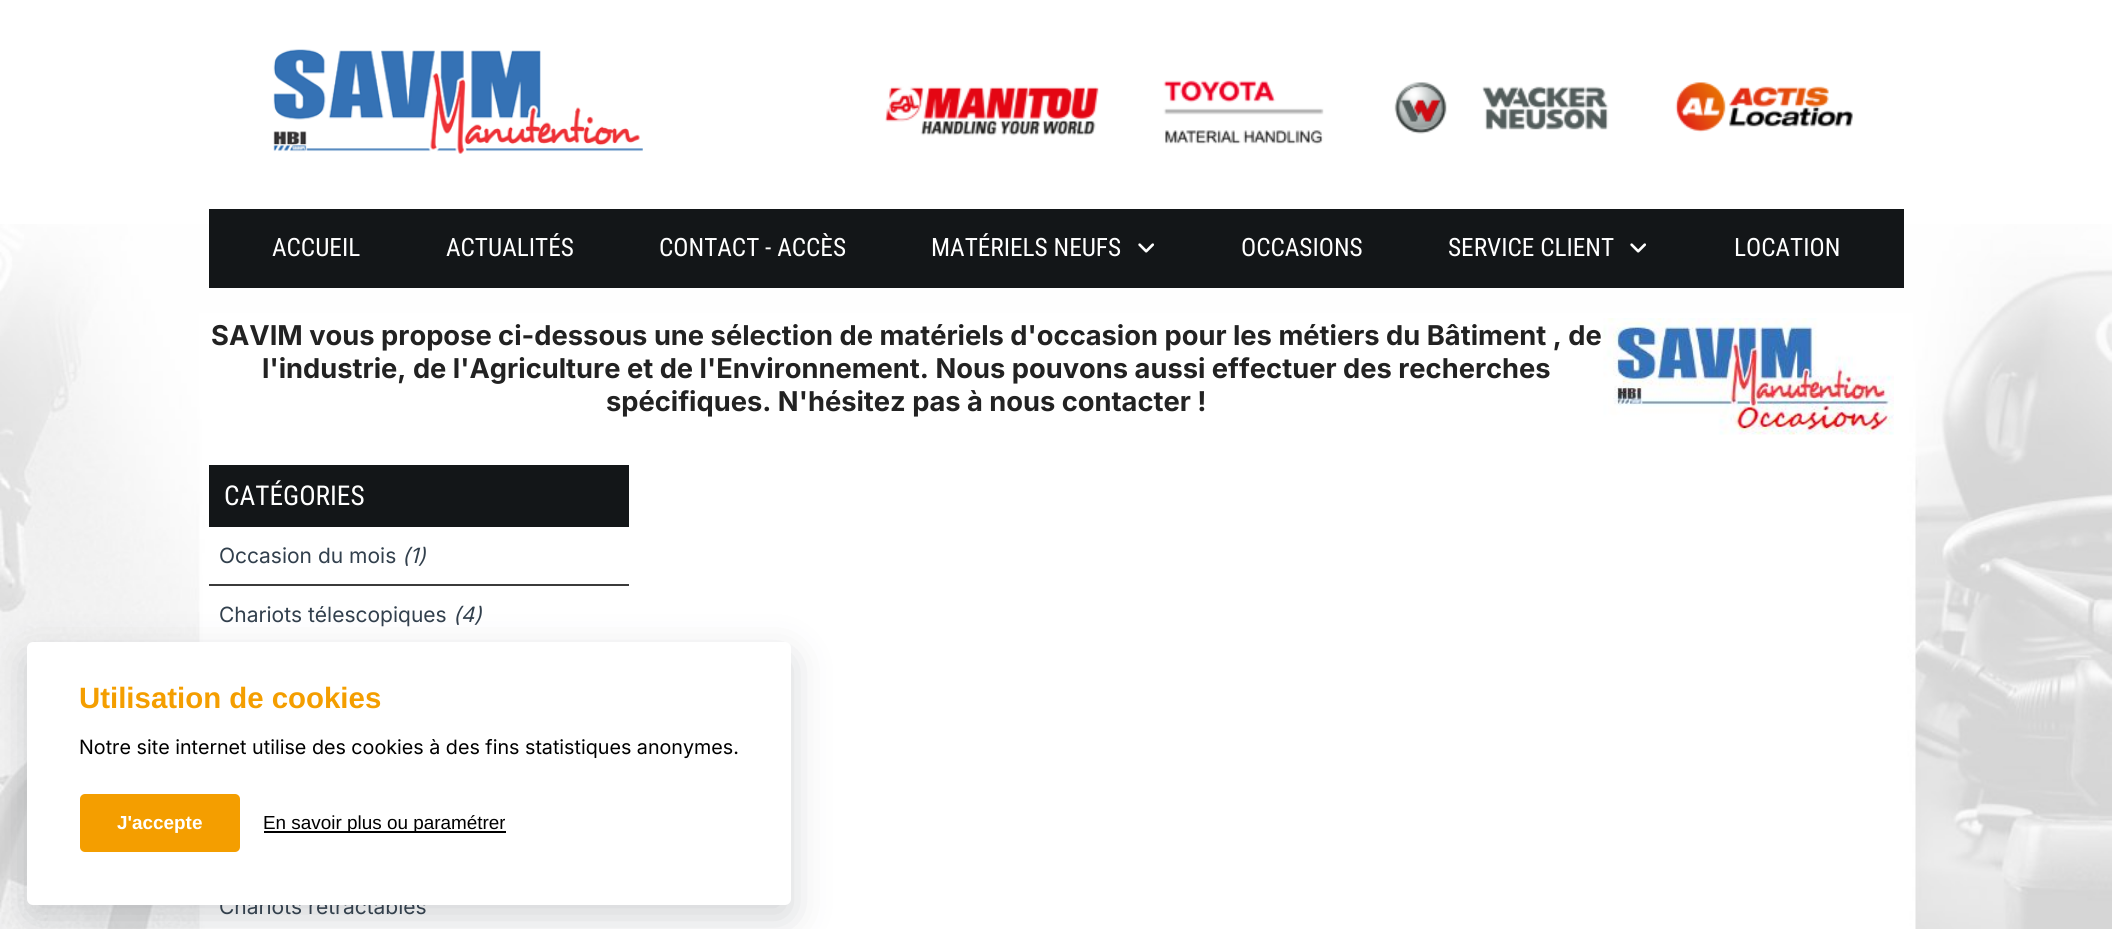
#include <cairo.h>
#include <math.h>
#include <stddef.h>


static void rgb(cairo_t *cr, int r, int g, int b)
{
	cairo_set_source_rgb(cr, r / 255.0, g / 255.0, b / 255.0);
}

static void face(cairo_t *cr, const char *family, double size, int italic, int bold)
{
	cairo_select_font_face(cr, family, italic ? CAIRO_FONT_SLANT_ITALIC : CAIRO_FONT_SLANT_NORMAL,
		bold ? CAIRO_FONT_WEIGHT_BOLD : CAIRO_FONT_WEIGHT_NORMAL);
	cairo_set_font_size(cr, size);
}

static void label(cairo_t *cr, double x, double y, const char *s)
{
	cairo_move_to(cr, x, y);
	cairo_show_text(cr, s);
}

static void rect(cairo_t *cr, double x, double y, double w, double h)
{
	cairo_rectangle(cr, x, y, w, h);
	cairo_fill(cr);
}

static void rrect(cairo_t *cr, double x, double y, double w, double h, double r)
{
	cairo_new_sub_path(cr);
	cairo_arc(cr, x + w - r, y + h - r, r, 0, M_PI / 2);
	cairo_arc(cr, x + r, y + h - r, r, M_PI / 2, M_PI);
	cairo_arc(cr, x + r, y + r, r, M_PI, 1.5 * M_PI);
	cairo_arc(cr, x + w - r, y + r, r, 1.5 * M_PI, 2 * M_PI);
	cairo_close_path(cr);
}

static void soft_shadow(cairo_t *cr, double x, double y, double w, double h, double r, double blur, double alpha)
{
	cairo_push_group_with_content(cr, CAIRO_CONTENT_ALPHA);
	cairo_set_operator(cr, CAIRO_OPERATOR_SOURCE);
	for (int i = 15; i >= -15 && fmin(w, h) + blur * i / 3 > 0; i -= 2) {
		double e = blur * i / 6;
		cairo_set_source_rgba(cr, 0, 0, 0, alpha * erfc((i - 1) / 8.5) / 2);
		rrect(cr, x - e, y - e, w + 2 * e, h + 2 * e, fmax(0, fmin(r + e + blur * .6, fmin(w, h) / 2 + e)));
		cairo_fill(cr);
	}
	cairo_pattern_t *soft = cairo_pop_group(cr);
	cairo_mask(cr, soft);
	cairo_pattern_destroy(soft);
}

static void image(cairo_t *cr, const char *path, double x, double y, double w, double h)
{
	cairo_surface_t *image = cairo_image_surface_create_from_png(path);
	cairo_save(cr);
	cairo_set_source_surface(cr, image, x, y);
	cairo_rectangle(cr, x, y, w, h);
	cairo_fill(cr);
	cairo_restore(cr);
	cairo_surface_destroy(image);
}

static void draw(cairo_t *cr) {
	rgb(cr, 255, 255, 255);
	cairo_paint(cr);
	image(cr, "image0.png", 0, 224, 2112, 705);
	image(cr, "image1.png", 273, 49, 370, 105);
	image(cr, "image2.png", 885, 80, 968, 65);
	rgb(cr, 19, 22, 24);
	rect(cr, 209, 209, 1695, 79);
	face(cr, "Roboto Condensed", 25.25, 0, 0);
	rgb(cr, 255, 255, 255);
	label(cr, 272, 256, "ACCUEIL");
	label(cr, 446, 256, "ACTUALITÉS");
	label(cr, 659, 256, "CONTACT - ACCÈS");
	label(cr, 931, 256, "MATÉRIELS NEUFS");
	image(cr, "image3.png", 1138, 243, 16, 10);
	label(cr, 1241, 256, "OCCASIONS");
	label(cr, 1448, 256, "SERVICE CLIENT");
	image(cr, "image3.png", 1630, 243, 16, 10);
	label(cr, 1734, 256, "LOCATION");
	face(cr, "Inter", 27.3, 0, 1);
	rgb(cr, 34, 34, 34);
	label(cr, 211, 345, "SAVIM vous propose ci-dessous une sélection de matériels d'occasion pour les métiers du Bâtiment , de");
	image(cr, "image4.png", 1603, 318, 291, 117);
	label(cr, 262, 378, "l'industrie, de l'Agriculture et de l'Environnement. Nous pouvons aussi effectuer des recherches");
	label(cr, 606, 411, "spécifiques. N'hésitez pas à nous contacter !");
	rgb(cr, 19, 22, 24);
	rect(cr, 209, 465, 420, 62);
	face(cr, "Roboto Condensed", 27.3, 0, 0);
	rgb(cr, 255, 255, 255);
	label(cr, 224, 505, "CATÉGORIES");
	rgb(cr, 59, 59, 59);
	rect(cr, 209, 584, 420, 2);
	face(cr, "Inter", 21, 0, 0);
	rgb(cr, 50, 64, 77);
	label(cr, 219, 563, "Occasion du mois");
	face(cr, "Inter", 21, 1, 0);
	label(cr, 402, 563, "(1)");
	face(cr, "Inter", 21, 0, 0);
	label(cr, 219, 622, "Chariots télescopiques");
	face(cr, "Inter", 21, 1, 0);
	label(cr, 453, 622, "(4)");
	face(cr, "Inter", 21, 0, 0);
	label(cr, 219, 914, "Chariots rétractables");
	rgb(cr, 57, 62, 72);
	soft_shadow(cr, 27, 656, 764, 262, 6, 19.5, 0.22);
	rgb(cr, 255, 255, 255);
	rrect(cr, 27, 642, 764, 263, 6);
	cairo_fill(cr);
	face(cr, "Liberation Sans", 29.4, 0, 1);
	rgb(cr, 244, 158, 0);
	label(cr, 79, 708, "Utilisation de cookies");
	face(cr, "Inter", 19.7, 0, 0);
	rgb(cr, 0, 0, 0);
	label(cr, 79, 754, "Notre site internet utilise des cookies à des fins statistiques anonymes.");
	rgb(cr, 244, 158, 0);
	rrect(cr, 80, 794, 160, 58, 5);
	cairo_fill(cr);
	face(cr, "Liberation Sans", 18.9, 0, 1);
	rgb(cr, 255, 255, 255);
	label(cr, 117, 829, "J'accepte");
	rgb(cr, 0, 0, 0);
	rect(cr, 264, 831, 242, 2);
	face(cr, "Liberation Sans", 18.9, 0, 0);
	label(cr, 263, 829, "En savoir plus ou paramétrer");
}

int main(void) {
	cairo_surface_t *surface = cairo_image_surface_create(CAIRO_FORMAT_RGB24, 2112, 929);
	cairo_t *cr = cairo_create(surface);
	cairo_font_options_t *options = cairo_font_options_create();
	cairo_font_options_set_hint_metrics(options, CAIRO_HINT_METRICS_OFF);
	cairo_font_options_set_hint_style(options, CAIRO_HINT_STYLE_NONE);
	cairo_set_font_options(cr, options);
	cairo_set_miter_limit(cr, 4);
	draw(cr);
	cairo_surface_write_to_png(surface, "render.png");
	cairo_font_options_destroy(options);
	cairo_destroy(cr);
	cairo_surface_destroy(surface);
	return 0;
}
